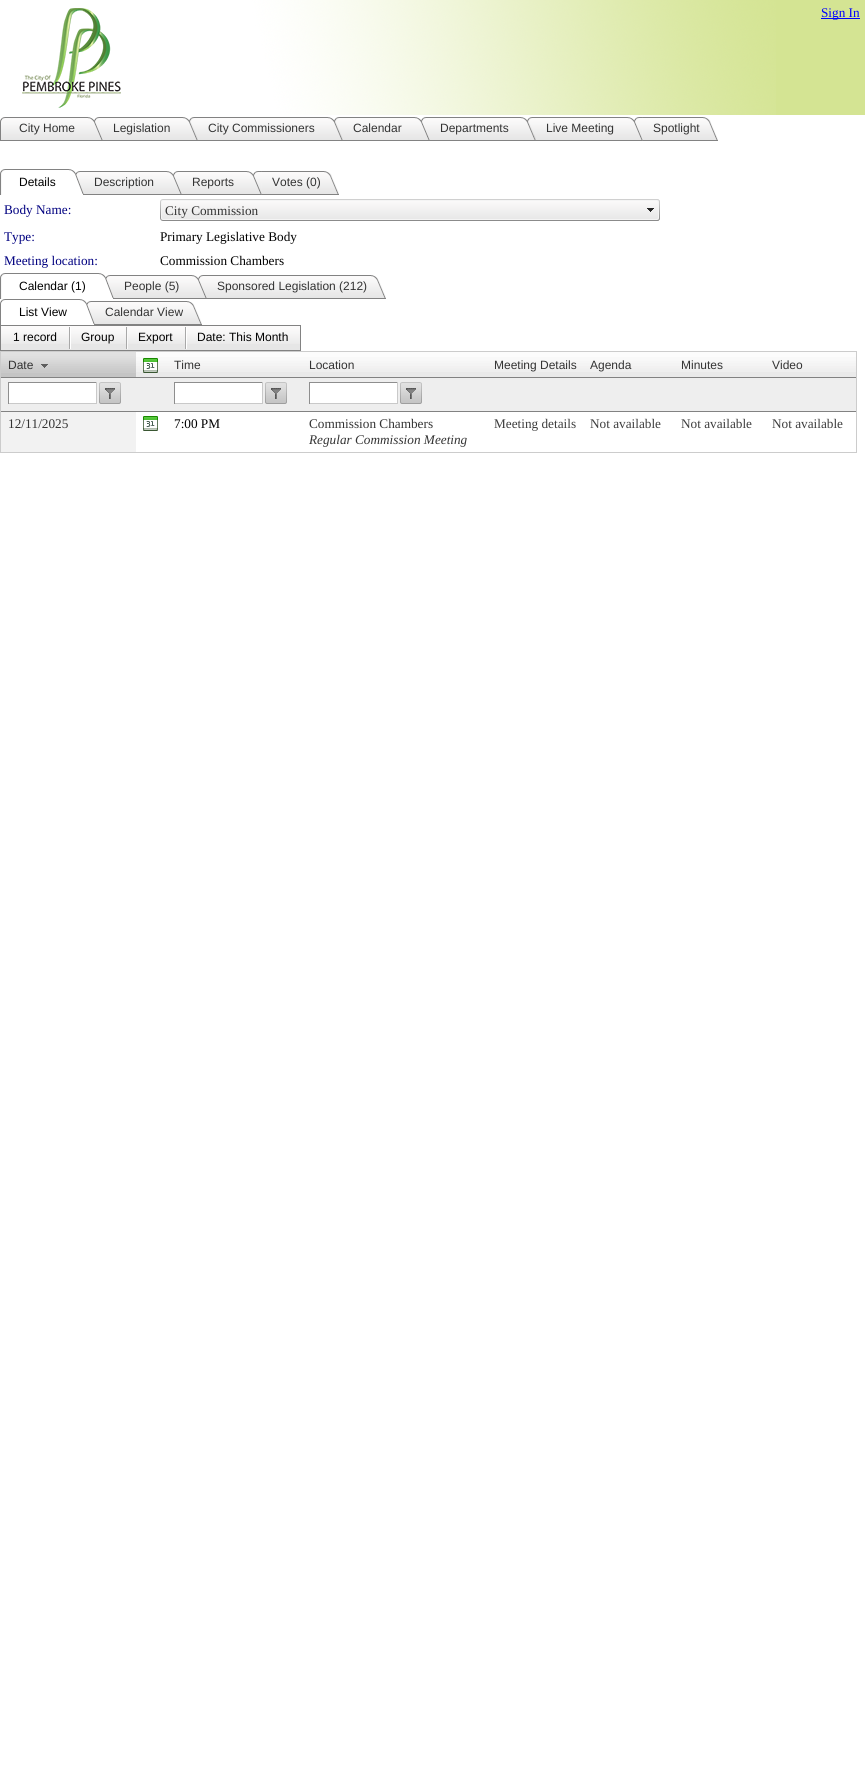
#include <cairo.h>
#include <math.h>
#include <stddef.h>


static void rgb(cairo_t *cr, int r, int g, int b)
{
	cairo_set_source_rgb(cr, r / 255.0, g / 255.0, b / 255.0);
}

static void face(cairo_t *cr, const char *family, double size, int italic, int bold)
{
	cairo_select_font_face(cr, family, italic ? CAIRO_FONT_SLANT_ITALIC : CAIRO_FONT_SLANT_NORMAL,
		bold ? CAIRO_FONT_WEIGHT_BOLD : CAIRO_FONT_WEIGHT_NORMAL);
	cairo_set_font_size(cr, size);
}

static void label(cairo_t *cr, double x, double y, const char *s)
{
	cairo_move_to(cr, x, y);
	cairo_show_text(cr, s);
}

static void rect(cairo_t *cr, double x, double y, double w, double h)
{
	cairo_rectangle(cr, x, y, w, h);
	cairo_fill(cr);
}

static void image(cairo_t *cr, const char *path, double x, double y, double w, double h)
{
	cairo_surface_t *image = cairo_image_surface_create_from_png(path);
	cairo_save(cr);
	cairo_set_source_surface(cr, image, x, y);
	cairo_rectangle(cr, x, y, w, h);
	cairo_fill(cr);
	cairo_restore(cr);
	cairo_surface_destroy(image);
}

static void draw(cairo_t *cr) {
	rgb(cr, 255, 255, 255);
	cairo_paint(cr);
	rgb(cr, 212, 228, 147);
	rect(cr, 776, 0, 89, 115);
	image(cr, "image0.png", 0, 0, 776, 115);
	rgb(cr, 0, 0, 255);
	rect(cr, 821, 18, 39, 1);
	face(cr, "Liberation Serif", 13.25, 0, 0);
	label(cr, 821, 17, "Sign In");
	image(cr, "image1.png", 0, 117, 9, 24);
	image(cr, "image2.png", 9, 117, 85, 24);
	face(cr, "Liberation Sans", 12, 0, 0);
	rgb(cr, 51, 51, 51);
	label(cr, 19, 132, "City Home");
	image(cr, "image3.png", 94, 117, 9, 24);
	image(cr, "image4.png", 103, 117, 86, 24);
	label(cr, 113, 132, "Legislation");
	image(cr, "image5.png", 189, 117, 9, 24);
	image(cr, "image6.png", 198, 117, 136, 24);
	label(cr, 208, 132, "City Commissioners");
	image(cr, "image5.png", 334, 117, 9, 24);
	image(cr, "image7.png", 343, 117, 78, 24);
	label(cr, 353, 132, "Calendar");
	image(cr, "image3.png", 421, 117, 9, 24);
	image(cr, "image8.png", 430, 117, 97, 24);
	label(cr, 440, 132, "Departments");
	image(cr, "image9.png", 527, 117, 9, 24);
	image(cr, "image10.png", 536, 117, 98, 24);
	label(cr, 546, 132, "Live Meeting");
	image(cr, "image11.png", 634, 117, 9, 24);
	image(cr, "image12.png", 643, 117, 75, 24);
	label(cr, 653, 132, "Spotlight");
	image(cr, "image13.png", 0, 169, 10, 26);
	image(cr, "image14.png", 9, 169, 66, 5);
	rgb(cr, 0, 0, 0);
	label(cr, 19, 186, "Details");
	image(cr, "image15.png", 75, 171, 9, 24);
	image(cr, "image16.png", 84, 171, 89, 24);
	rgb(cr, 51, 51, 51);
	label(cr, 94, 186, "Description");
	image(cr, "image3.png", 173, 171, 9, 24);
	image(cr, "image17.png", 182, 171, 71, 24);
	label(cr, 192, 186, "Reports");
	image(cr, "image18.png", 253, 171, 9, 24);
	image(cr, "image19.png", 262, 171, 77, 24);
	label(cr, 272, 186, "Votes (0)");
	face(cr, "Liberation Serif", 13.25, 0, 0);
	rgb(cr, 0, 0, 128);
	label(cr, 4, 214, "Body Name:");
	image(cr, "image20.png", 160, 199, 482, 22);
	rgb(cr, 51, 51, 51);
	label(cr, 165, 215, "City Commission");
	image(cr, "image21.png", 642, 199, 18, 22);
	rgb(cr, 0, 0, 128);
	label(cr, 4, 241, "Type:");
	rgb(cr, 0, 0, 0);
	label(cr, 160, 241, "Primary Legislative Body");
	rgb(cr, 0, 0, 128);
	label(cr, 4, 265, "Meeting location:");
	rgb(cr, 0, 0, 0);
	label(cr, 160, 265, "Commission Chambers");
	image(cr, "image13.png", 0, 273, 10, 26);
	image(cr, "image22.png", 9, 273, 96, 5);
	face(cr, "Liberation Sans", 12, 0, 0);
	label(cr, 19, 290, "Calendar (1)");
	image(cr, "image15.png", 105, 275, 9, 24);
	image(cr, "image23.png", 114, 275, 84, 24);
	rgb(cr, 51, 51, 51);
	label(cr, 124, 290, "People (5)");
	image(cr, "image3.png", 198, 275, 9, 24);
	image(cr, "image24.png", 207, 275, 179, 24);
	label(cr, 217, 290, "Sponsored Legislation (212)");
	image(cr, "image25.png", 0, 299, 9, 26);
	image(cr, "image26.png", 9, 299, 77, 5);
	rgb(cr, 0, 0, 0);
	label(cr, 19, 316, "List View");
	image(cr, "image15.png", 86, 301, 9, 24);
	image(cr, "image27.png", 95, 301, 107, 24);
	rgb(cr, 51, 51, 51);
	label(cr, 105, 316, "Calendar View");
	rgb(cr, 230, 230, 230);
	rect(cr, 1, 344, 299, 6);
	image(cr, "image28.png", 1, 326, 299, 18);
	cairo_rectangle(cr, 0.5, 325.5, 300, 25);
	rgb(cr, 130, 130, 130);
	cairo_set_line_width(cr, 1);
	cairo_stroke(cr);
	rgb(cr, 0, 0, 0);
	label(cr, 13, 341, "1 record");
	image(cr, "image29.png", 69, 327, 2, 22);
	label(cr, 81, 341, "Group");
	image(cr, "image30.png", 126, 327, 2, 22);
	label(cr, 138, 341, "Export");
	image(cr, "image29.png", 185, 327, 2, 22);
	label(cr, 197, 341, "Date: This Month");
	cairo_rectangle(cr, 0.5, 351.5, 856, 101);
	rgb(cr, 204, 204, 204);
	cairo_stroke(cr);
	rgb(cr, 196, 196, 196);
	rect(cr, 1, 373, 135, 4);
	image(cr, "image31.png", 1, 352, 135, 21);
	rgb(cr, 130, 130, 130);
	rect(cr, 1, 377, 855, 1);
	rgb(cr, 51, 51, 51);
	label(cr, 8, 369, "Date");
	image(cr, "image32.png", 41, 364, 7, 4);
	rgb(cr, 234, 234, 234);
	rect(cr, 136, 372, 720, 5);
	image(cr, "image33.png", 136, 352, 31, 20);
	image(cr, "image34.png", 143, 358, 15, 15);
	image(cr, "image35.png", 167, 352, 135, 20);
	rgb(cr, 51, 51, 51);
	label(cr, 174, 369, "Time");
	image(cr, "image36.png", 302, 352, 185, 20);
	label(cr, 309, 369, "Location");
	image(cr, "image37.png", 487, 352, 96, 20);
	label(cr, 494, 369, "Meeting Details");
	image(cr, "image38.png", 583, 352, 91, 20);
	label(cr, 590, 369, "Agenda");
	image(cr, "image38.png", 674, 352, 91, 20);
	label(cr, 681, 369, "Minutes");
	image(cr, "image38.png", 765, 352, 91, 20);
	label(cr, 772, 369, "Video");
	rgb(cr, 238, 238, 238);
	rect(cr, 1, 378, 855, 33);
	rgb(cr, 130, 130, 130);
	rect(cr, 1, 411, 855, 1);
	rgb(cr, 255, 255, 255);
	rect(cr, 9, 383, 87, 20);
	rgb(cr, 142, 142, 142);
	rect(cr, 8, 382, 89, 1);
	rgb(cr, 201, 201, 201);
	rect(cr, 96, 382, 1, 22);
	rect(cr, 8, 403, 89, 1);
	rgb(cr, 142, 142, 142);
	rect(cr, 8, 382, 1, 22);
	image(cr, "image39.png", 99, 382, 22, 22);
	rgb(cr, 255, 255, 255);
	rect(cr, 175, 383, 87, 20);
	rgb(cr, 142, 142, 142);
	rect(cr, 174, 382, 89, 1);
	rgb(cr, 201, 201, 201);
	rect(cr, 262, 382, 1, 22);
	rect(cr, 174, 403, 89, 1);
	rgb(cr, 142, 142, 142);
	rect(cr, 174, 382, 1, 22);
	image(cr, "image39.png", 265, 382, 22, 22);
	rgb(cr, 255, 255, 255);
	rect(cr, 310, 383, 87, 20);
	rgb(cr, 142, 142, 142);
	rect(cr, 309, 382, 89, 1);
	rgb(cr, 201, 201, 201);
	rect(cr, 397, 382, 1, 22);
	rect(cr, 309, 403, 89, 1);
	rgb(cr, 142, 142, 142);
	rect(cr, 309, 382, 1, 22);
	image(cr, "image39.png", 400, 382, 22, 22);
	rgb(cr, 242, 242, 242);
	rect(cr, 1, 412, 135, 40);
	face(cr, "Liberation Serif", 13.25, 0, 0);
	rgb(cr, 51, 51, 51);
	label(cr, 8, 428, "12/11/2025");
	image(cr, "image34.png", 143, 416, 15, 15);
	rgb(cr, 0, 0, 0);
	label(cr, 174, 428, "7:00 PM");
	rgb(cr, 51, 51, 51);
	label(cr, 309, 428, "Commission Chambers");
	face(cr, "Liberation Serif", 13.25, 1, 0);
	label(cr, 309, 444, "Regular Commission Meeting");
	face(cr, "Liberation Serif", 13.25, 0, 0);
	rgb(cr, 61, 61, 61);
	label(cr, 494, 428, "Meeting details");
	label(cr, 590, 428, "Not available");
	label(cr, 681, 428, "Not available");
	label(cr, 772, 428, "Not available");
}

int main(void) {
	cairo_surface_t *surface = cairo_image_surface_create(CAIRO_FORMAT_RGB24, 865, 1770);
	cairo_t *cr = cairo_create(surface);
	cairo_font_options_t *options = cairo_font_options_create();
	cairo_font_options_set_hint_metrics(options, CAIRO_HINT_METRICS_OFF);
	cairo_font_options_set_hint_style(options, CAIRO_HINT_STYLE_NONE);
	cairo_set_font_options(cr, options);
	cairo_set_miter_limit(cr, 4);
	draw(cr);
	cairo_surface_write_to_png(surface, "render.png");
	cairo_font_options_destroy(options);
	cairo_destroy(cr);
	cairo_surface_destroy(surface);
	return 0;
}
